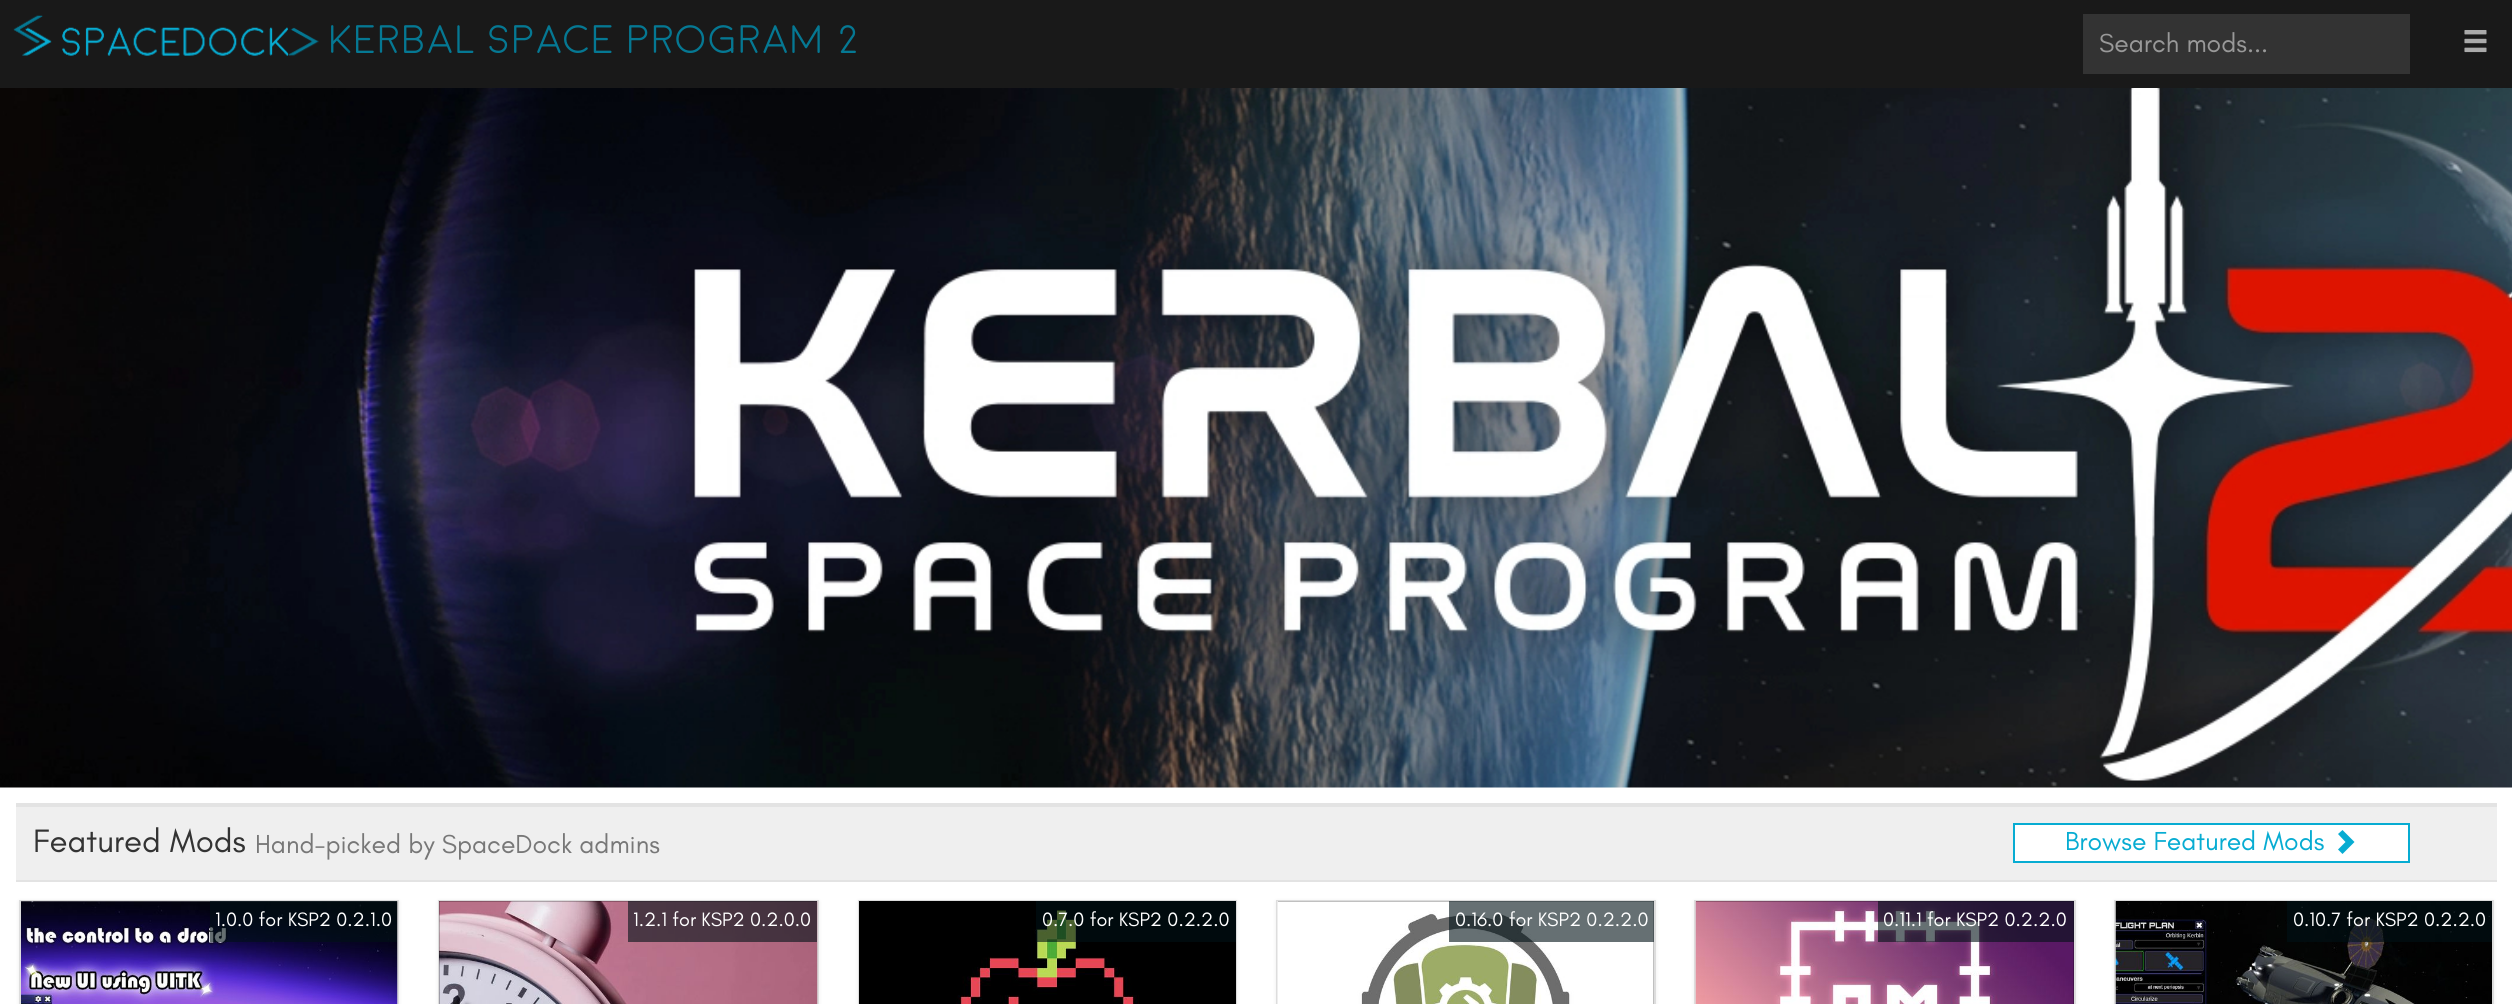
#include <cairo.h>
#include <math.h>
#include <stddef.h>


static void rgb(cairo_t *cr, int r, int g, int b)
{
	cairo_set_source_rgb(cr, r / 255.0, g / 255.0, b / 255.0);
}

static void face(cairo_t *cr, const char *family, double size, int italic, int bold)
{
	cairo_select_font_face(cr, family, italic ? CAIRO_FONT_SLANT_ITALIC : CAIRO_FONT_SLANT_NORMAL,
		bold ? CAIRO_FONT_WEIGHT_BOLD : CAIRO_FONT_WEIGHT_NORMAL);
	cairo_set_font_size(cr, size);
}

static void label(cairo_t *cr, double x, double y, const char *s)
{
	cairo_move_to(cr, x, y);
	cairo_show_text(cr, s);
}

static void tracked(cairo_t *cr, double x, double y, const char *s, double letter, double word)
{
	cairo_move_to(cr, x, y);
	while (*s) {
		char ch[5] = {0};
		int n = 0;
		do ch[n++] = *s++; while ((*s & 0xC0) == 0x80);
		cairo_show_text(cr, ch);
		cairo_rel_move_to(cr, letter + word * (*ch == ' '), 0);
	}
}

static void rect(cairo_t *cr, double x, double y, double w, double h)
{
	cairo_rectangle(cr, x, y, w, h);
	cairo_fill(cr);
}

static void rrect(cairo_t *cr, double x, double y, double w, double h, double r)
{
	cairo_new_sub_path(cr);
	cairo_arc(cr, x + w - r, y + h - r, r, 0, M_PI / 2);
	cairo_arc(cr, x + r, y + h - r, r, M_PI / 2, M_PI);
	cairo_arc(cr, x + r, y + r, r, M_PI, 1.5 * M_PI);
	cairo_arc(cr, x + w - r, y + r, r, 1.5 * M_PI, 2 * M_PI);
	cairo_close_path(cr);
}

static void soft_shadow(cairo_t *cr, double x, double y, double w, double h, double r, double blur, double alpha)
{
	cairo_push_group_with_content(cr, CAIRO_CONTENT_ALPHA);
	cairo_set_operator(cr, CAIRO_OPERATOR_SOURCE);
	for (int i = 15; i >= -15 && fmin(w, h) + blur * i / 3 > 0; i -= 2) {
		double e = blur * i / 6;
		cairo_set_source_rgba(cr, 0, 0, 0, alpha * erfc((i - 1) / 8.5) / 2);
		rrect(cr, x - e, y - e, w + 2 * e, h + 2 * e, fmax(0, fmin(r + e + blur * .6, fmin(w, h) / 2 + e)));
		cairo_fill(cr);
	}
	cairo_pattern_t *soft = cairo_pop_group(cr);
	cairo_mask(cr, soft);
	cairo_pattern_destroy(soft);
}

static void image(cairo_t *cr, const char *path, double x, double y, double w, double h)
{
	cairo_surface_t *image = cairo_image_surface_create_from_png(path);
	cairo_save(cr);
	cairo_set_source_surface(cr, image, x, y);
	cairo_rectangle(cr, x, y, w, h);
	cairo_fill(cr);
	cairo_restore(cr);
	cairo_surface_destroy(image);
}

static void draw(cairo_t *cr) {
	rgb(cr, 255, 255, 255);
	cairo_paint(cr);
	rgb(cr, 25, 25, 25);
	rect(cr, 0, 0, 2512, 88);
	image(cr, "image0.png", 13, 15, 276, 41);
	image(cr, "image1.png", 288, 27, 31, 29);
	face(cr, "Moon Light", 39.75, 0, 0);
	rgb(cr, 5, 120, 147);
	tracked(cr, 329, 53, "KERBAL SPACE PROGRAM 2", 1.75, 0);
	rgb(cr, 51, 51, 51);
	rect(cr, 2083, 14, 327, 60);
	face(cr, "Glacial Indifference", 26.5, 0, 0);
	rgb(cr, 153, 153, 153);
	label(cr, 2099, 52, "Search mods...");
	image(cr, "image2.png", 2464, 30, 23, 23);
	image(cr, "image3.png", 0, 88, 2512, 700);
	rgb(cr, 239, 239, 239);
	rect(cr, 16, 807, 2481, 73);
	rgb(cr, 227, 227, 227);
	rect(cr, 16, 803, 2481, 4);
	rect(cr, 16, 880, 2481, 2);
	face(cr, "Glacial Indifference", 33, 0, 0);
	rgb(cr, 51, 51, 51);
	label(cr, 33, 852, "Featured Mods");
	face(cr, "Glacial Indifference", 26.5, 0, 0);
	rgb(cr, 119, 119, 119);
	label(cr, 255, 853, "Hand-picked by SpaceDock admins");
	rgb(cr, 255, 255, 255);
	cairo_rectangle(cr, 2014, 824, 395, 38);
	cairo_fill_preserve(cr);
	rgb(cr, 7, 172, 210);
	cairo_stroke(cr);
	label(cr, 2065, 850, "Browse Featured Mods");
	cairo_new_path(cr);
	cairo_move_to(cr, 2354.5, 842);
	cairo_line_to(cr, 2342.5, 854);
	cairo_line_to(cr, 2338, 849.5);
	cairo_line_to(cr, 2345.5, 842);
	cairo_line_to(cr, 2338, 834);
	cairo_line_to(cr, 2342.5, 830);
	cairo_close_path(cr);
	cairo_fill(cr);
	rgb(cr, 0, 0, 0);
	soft_shadow(cr, 19, 901, 380, 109, 0, 2, 0.07);
	cairo_rectangle(cr, 20, 901, 378, 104);
	rgb(cr, 221, 221, 221);
	cairo_stroke(cr);
	image(cr, "image4.png", 21, 901, 377, 103);
	cairo_set_source_rgba(cr, 0, 0.067, 0.086, 0.6);
	rect(cr, 210, 901, 187, 41);
	face(cr, "Glacial Indifference", 19.75, 0, 0);
	rgb(cr, 255, 255, 255);
	label(cr, 215, 926, "1.0.0 for KSP2 0.2.1.0");
	rgb(cr, 0, 0, 0);
	soft_shadow(cr, 438, 901, 381, 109, 0, 2, 0.07);
	cairo_rectangle(cr, 439, 901, 379, 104);
	rgb(cr, 221, 221, 221);
	cairo_stroke(cr);
	rgb(cr, 0, 0, 0);
	rect(cr, 439, 901, 378, 103);
	image(cr, "image5.png", 439, 901, 379, 103);
	cairo_set_source_rgba(cr, 0, 0.067, 0.086, 0.6);
	rect(cr, 628, 901, 189, 41);
	rgb(cr, 255, 255, 255);
	label(cr, 633, 926, "1.2.1 for KSP2 0.2.0.0");
	rgb(cr, 0, 0, 0);
	soft_shadow(cr, 858, 901, 379, 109, 0, 2, 0.07);
	cairo_rectangle(cr, 859, 901, 377, 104);
	rgb(cr, 221, 221, 221);
	cairo_stroke(cr);
	rgb(cr, 0, 0, 0);
	rect(cr, 859, 901, 377, 103);
	image(cr, "image6.png", 956, 910, 183, 94);
	cairo_set_source_rgba(cr, 0, 0.067, 0.086, 0.6);
	rect(cr, 1036, 901, 200, 41);
	rgb(cr, 255, 255, 255);
	label(cr, 1042, 926, "0.7.0 for KSP2 0.2.2.0");
	rgb(cr, 0, 0, 0);
	soft_shadow(cr, 1276, 901, 380, 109, 0, 2, 0.07);
	cairo_rectangle(cr, 1277, 901, 378, 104);
	rgb(cr, 221, 221, 221);
	cairo_stroke(cr);
	rgb(cr, 0, 0, 0);
	rect(cr, 1278, 901, 376, 103);
	image(cr, "image7.png", 1277, 901, 377, 103);
	cairo_set_source_rgba(cr, 0, 0.067, 0.086, 0.6);
	rect(cr, 1449, 901, 205, 41);
	rgb(cr, 255, 255, 255);
	label(cr, 1455, 926, "0.16.0 for KSP2 0.2.2.0");
	rgb(cr, 0, 0, 0);
	soft_shadow(cr, 1694, 901, 382, 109, 0, 2, 0.07);
	cairo_rectangle(cr, 1695, 901, 380, 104);
	rgb(cr, 221, 221, 221);
	cairo_stroke(cr);
	rgb(cr, 0, 0, 0);
	rect(cr, 1696, 901, 378, 103);
	image(cr, "image8.png", 1695, 901, 379, 103);
	cairo_set_source_rgba(cr, 0, 0.067, 0.086, 0.6);
	rect(cr, 1878, 901, 196, 41);
	rgb(cr, 255, 255, 255);
	label(cr, 1883, 926, "0.11.1 for KSP2 0.2.2.0");
	rgb(cr, 0, 0, 0);
	soft_shadow(cr, 2114, 901, 380, 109, 0, 2, 0.07);
	cairo_rectangle(cr, 2115, 901, 378, 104);
	rgb(cr, 221, 221, 221);
	cairo_stroke(cr);
	rgb(cr, 0, 0, 0);
	rect(cr, 2116, 901, 376, 103);
	image(cr, "image9.png", 2115, 901, 376, 103);
	cairo_set_source_rgba(cr, 0, 0.067, 0.086, 0.6);
	rect(cr, 2287, 901, 205, 41);
	rgb(cr, 255, 255, 255);
	label(cr, 2293, 926, "0.10.7 for KSP2 0.2.2.0");
}

int main(void) {
	cairo_surface_t *surface = cairo_image_surface_create(CAIRO_FORMAT_RGB24, 2512, 1004);
	cairo_t *cr = cairo_create(surface);
	cairo_font_options_t *options = cairo_font_options_create();
	cairo_font_options_set_hint_metrics(options, CAIRO_HINT_METRICS_OFF);
	cairo_font_options_set_hint_style(options, CAIRO_HINT_STYLE_NONE);
	cairo_set_font_options(cr, options);
	cairo_set_miter_limit(cr, 4);
	draw(cr);
	cairo_surface_write_to_png(surface, "render.png");
	cairo_font_options_destroy(options);
	cairo_destroy(cr);
	cairo_surface_destroy(surface);
	return 0;
}
